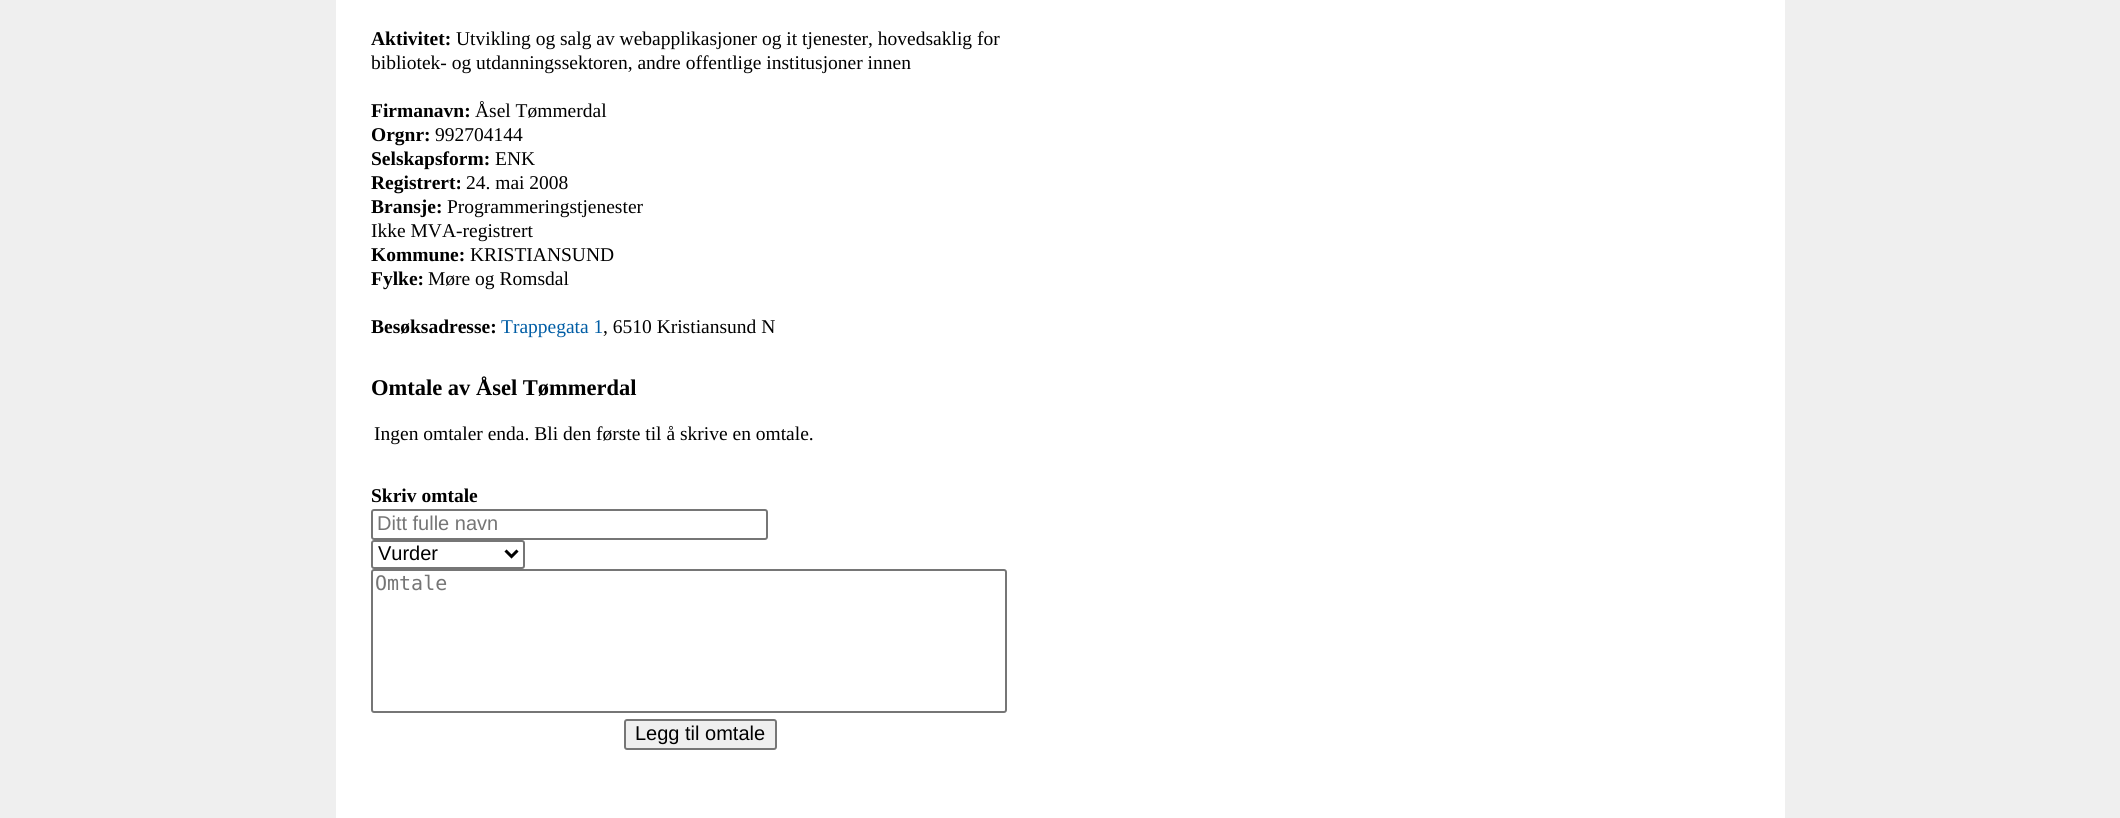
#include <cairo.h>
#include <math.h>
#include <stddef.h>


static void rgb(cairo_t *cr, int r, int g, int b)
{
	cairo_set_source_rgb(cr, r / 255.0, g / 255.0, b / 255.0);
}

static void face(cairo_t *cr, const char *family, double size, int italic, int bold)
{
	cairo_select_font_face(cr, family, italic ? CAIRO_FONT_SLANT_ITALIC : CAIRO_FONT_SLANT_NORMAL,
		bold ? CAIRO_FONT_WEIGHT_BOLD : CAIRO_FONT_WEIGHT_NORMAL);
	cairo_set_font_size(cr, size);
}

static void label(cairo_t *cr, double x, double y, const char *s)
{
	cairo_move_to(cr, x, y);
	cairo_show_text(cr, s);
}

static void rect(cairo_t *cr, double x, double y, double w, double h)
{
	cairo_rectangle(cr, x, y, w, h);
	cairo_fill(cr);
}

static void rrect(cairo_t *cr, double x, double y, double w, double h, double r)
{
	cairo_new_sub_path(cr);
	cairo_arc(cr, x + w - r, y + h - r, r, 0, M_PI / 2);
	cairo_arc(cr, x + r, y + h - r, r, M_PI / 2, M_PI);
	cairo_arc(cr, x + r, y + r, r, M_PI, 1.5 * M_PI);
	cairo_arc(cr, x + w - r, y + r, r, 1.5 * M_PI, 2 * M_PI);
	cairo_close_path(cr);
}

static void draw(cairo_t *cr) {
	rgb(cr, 239, 239, 239);
	cairo_paint(cr);
	rgb(cr, 255, 255, 255);
	rect(cr, 336, 0, 1449, 818);
	face(cr, "Liberation Serif", 19.5, 0, 1);
	rgb(cr, 0, 0, 0);
	label(cr, 371, 45, "Aktivitet:");
	face(cr, "Liberation Serif", 19.5, 0, 0);
	label(cr, 456, 45, "Utvikling og salg av webapplikasjoner og it tjenester, hovedsaklig for");
	label(cr, 371, 69, "bibliotek- og utdanningssektoren, andre offentlige institusjoner innen");
	face(cr, "Liberation Serif", 19.5, 0, 1);
	label(cr, 371, 117, "Firmanavn:");
	face(cr, "Liberation Serif", 19.5, 0, 0);
	label(cr, 475, 117, "Åsel Tømmerdal");
	face(cr, "Liberation Serif", 19.5, 0, 1);
	label(cr, 371, 141, "Orgnr:");
	face(cr, "Liberation Serif", 19.5, 0, 0);
	label(cr, 435, 141, "992704144");
	face(cr, "Liberation Serif", 19.5, 0, 1);
	label(cr, 371, 165, "Selskapsform:");
	face(cr, "Liberation Serif", 19.5, 0, 0);
	label(cr, 495, 165, "ENK");
	face(cr, "Liberation Serif", 19.5, 0, 1);
	label(cr, 371, 189, "Registrert:");
	face(cr, "Liberation Serif", 19.5, 0, 0);
	label(cr, 466, 189, "24. mai 2008");
	face(cr, "Liberation Serif", 19.5, 0, 1);
	label(cr, 371, 213, "Bransje:");
	face(cr, "Liberation Serif", 19.5, 0, 0);
	label(cr, 447, 213, "Programmeringstjenester");
	label(cr, 371, 237, "Ikke MVA-registrert");
	face(cr, "Liberation Serif", 19.5, 0, 1);
	label(cr, 371, 261, "Kommune:");
	face(cr, "Liberation Serif", 19.5, 0, 0);
	label(cr, 470, 261, "KRISTIANSUND");
	face(cr, "Liberation Serif", 19.5, 0, 1);
	label(cr, 371, 285, "Fylke:");
	face(cr, "Liberation Serif", 19.5, 0, 0);
	label(cr, 428, 285, "Møre og Romsdal");
	face(cr, "Liberation Serif", 19.5, 0, 1);
	label(cr, 371, 333, "Besøksadresse:");
	face(cr, "Liberation Serif", 19.5, 0, 0);
	rgb(cr, 0, 93, 165);
	label(cr, 501, 333, "Trappegata 1");
	rgb(cr, 0, 0, 0);
	label(cr, 603, 333, ", 6510 Kristiansund N");
	face(cr, "Liberation Serif", 22.5, 0, 1);
	label(cr, 371, 395, "Omtale av Åsel Tømmerdal");
	face(cr, "Liberation Serif", 19.5, 0, 0);
	label(cr, 374, 440, "Ingen omtaler enda. Bli den første til å skrive en omtale.");
	face(cr, "Liberation Serif", 19.5, 0, 1);
	label(cr, 371, 502, "Skriv omtale");
	rrect(cr, 372, 510, 395, 29, 2);
	rgb(cr, 118, 118, 118);
	cairo_stroke(cr);
	face(cr, "Liberation Sans", 20, 0, 0);
	rgb(cr, 117, 117, 117);
	label(cr, 377, 530, "Ditt fulle navn");
	rrect(cr, 372, 541, 152, 27, 2);
	rgb(cr, 118, 118, 118);
	cairo_stroke(cr);
	cairo_new_path(cr);
	cairo_move_to(cr, 505.5, 550.5);
	cairo_line_to(cr, 511.5, 556.5);
	cairo_line_to(cr, 517.5, 550.5);
	rgb(cr, 0, 0, 0);
	cairo_set_line_width(cr, 3);
	cairo_stroke(cr);
	label(cr, 378, 560, "Vurder");
	rrect(cr, 372, 570, 634, 142, 2);
	rgb(cr, 118, 118, 118);
	cairo_set_line_width(cr, 2);
	cairo_stroke(cr);
	face(cr, "DejaVu Sans Mono", 20, 0, 0);
	rgb(cr, 117, 117, 117);
	label(cr, 375, 590, "Omtale");
	rgb(cr, 239, 239, 239);
	rrect(cr, 625, 720, 151, 29, 2);
	cairo_fill_preserve(cr);
	rgb(cr, 118, 118, 118);
	cairo_stroke(cr);
	face(cr, "Liberation Sans", 20, 0, 0);
	rgb(cr, 0, 0, 0);
	label(cr, 635, 740, "Legg til omtale");
}

int main(void) {
	cairo_surface_t *surface = cairo_image_surface_create(CAIRO_FORMAT_RGB24, 2120, 818);
	cairo_t *cr = cairo_create(surface);
	cairo_font_options_t *options = cairo_font_options_create();
	cairo_font_options_set_hint_metrics(options, CAIRO_HINT_METRICS_OFF);
	cairo_font_options_set_hint_style(options, CAIRO_HINT_STYLE_NONE);
	cairo_set_font_options(cr, options);
	cairo_set_miter_limit(cr, 4);
	draw(cr);
	cairo_surface_write_to_png(surface, "render.png");
	cairo_font_options_destroy(options);
	cairo_destroy(cr);
	cairo_surface_destroy(surface);
	return 0;
}
